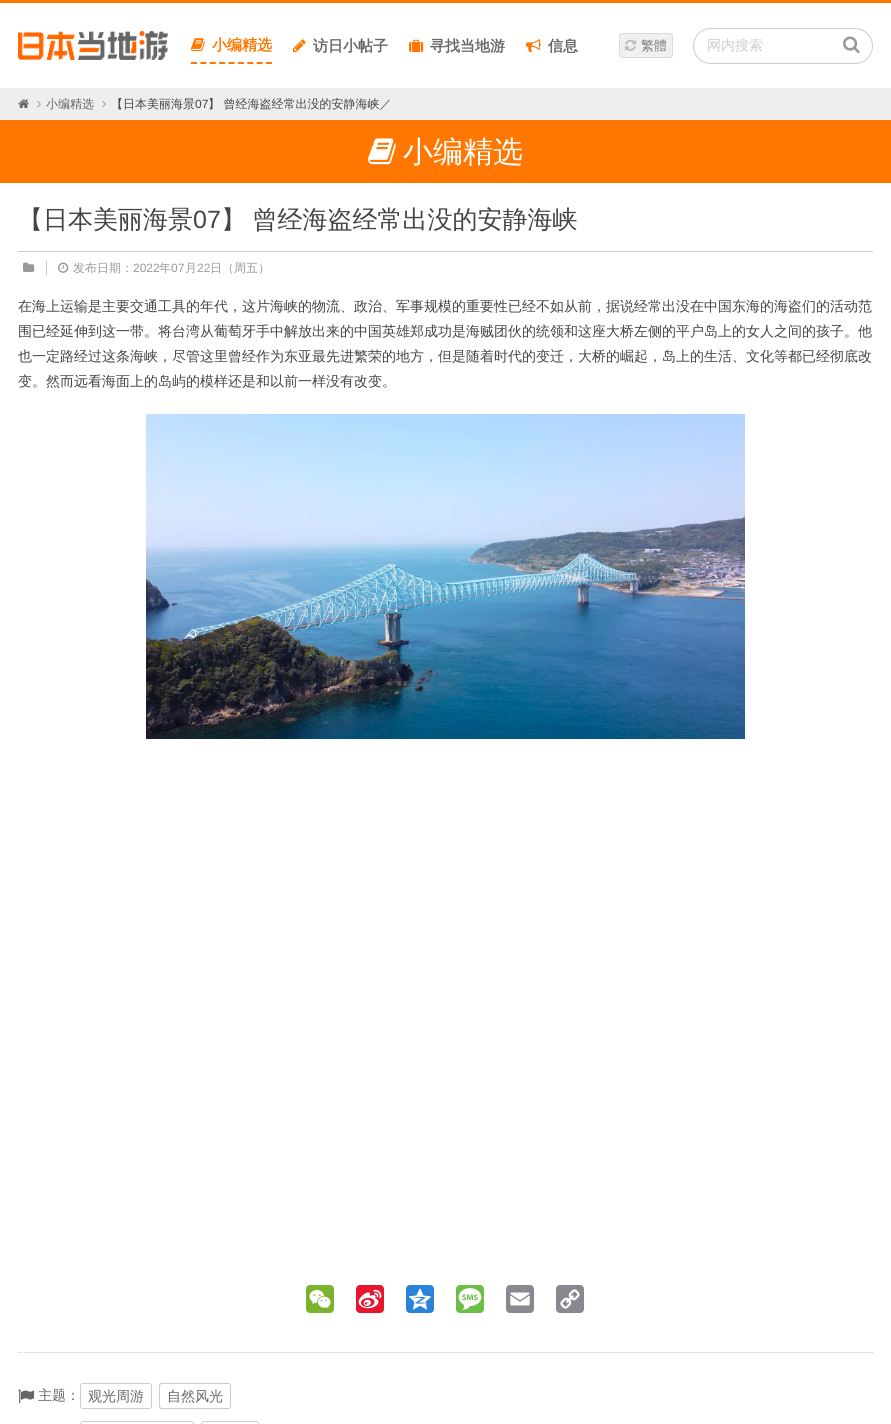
#include <cairo.h>
#include <math.h>
#include <stddef.h>


static void rgb(cairo_t *cr, int r, int g, int b)
{
	cairo_set_source_rgb(cr, r / 255.0, g / 255.0, b / 255.0);
}

static void face(cairo_t *cr, const char *family, double size, int italic, int bold)
{
	cairo_select_font_face(cr, family, italic ? CAIRO_FONT_SLANT_ITALIC : CAIRO_FONT_SLANT_NORMAL,
		bold ? CAIRO_FONT_WEIGHT_BOLD : CAIRO_FONT_WEIGHT_NORMAL);
	cairo_set_font_size(cr, size);
}

static void label(cairo_t *cr, double x, double y, const char *s)
{
	cairo_move_to(cr, x, y);
	cairo_show_text(cr, s);
}

static void tracked(cairo_t *cr, double x, double y, const char *s, double letter, double word)
{
	cairo_move_to(cr, x, y);
	while (*s) {
		char ch[5] = {0};
		int n = 0;
		do ch[n++] = *s++; while ((*s & 0xC0) == 0x80);
		cairo_show_text(cr, ch);
		cairo_rel_move_to(cr, letter + word * (*ch == ' '), 0);
	}
}

static void rect(cairo_t *cr, double x, double y, double w, double h)
{
	cairo_rectangle(cr, x, y, w, h);
	cairo_fill(cr);
}

static void rrect(cairo_t *cr, double x, double y, double w, double h, double r)
{
	cairo_new_sub_path(cr);
	cairo_arc(cr, x + w - r, y + h - r, r, 0, M_PI / 2);
	cairo_arc(cr, x + r, y + h - r, r, M_PI / 2, M_PI);
	cairo_arc(cr, x + r, y + r, r, M_PI, 1.5 * M_PI);
	cairo_arc(cr, x + w - r, y + r, r, 1.5 * M_PI, 2 * M_PI);
	cairo_close_path(cr);
}

static void image(cairo_t *cr, const char *path, double x, double y, double w, double h)
{
	cairo_surface_t *image = cairo_image_surface_create_from_png(path);
	cairo_save(cr);
	cairo_set_source_surface(cr, image, x, y);
	cairo_rectangle(cr, x, y, w, h);
	cairo_fill(cr);
	cairo_restore(cr);
	cairo_surface_destroy(image);
}

static void draw(cairo_t *cr) {
	rgb(cr, 255, 255, 255);
	cairo_paint(cr);
	rgb(cr, 255, 119, 0);
	rect(cr, 0, 0, 891, 3);
	image(cr, "image0.png", 18, 31, 150, 29);
	cairo_new_path(cr);
	cairo_move_to(cr, 191, 63);
	cairo_line_to(cr, 272, 63);
	cairo_set_dash(cr, (double[]){6, 3.38}, 2, 0);
	cairo_stroke(cr);
	image(cr, "image1.png", 191, 38, 14, 14);
	face(cr, "WenQuanYi Zen Hei", 15, 0, 1);
	label(cr, 212, 50, "小编精选");
	image(cr, "image2.png", 293, 39, 13, 14);
	rgb(cr, 102, 102, 102);
	label(cr, 313, 51, "访日小帖子");
	image(cr, "image3.png", 409, 39, 15, 13);
	label(cr, 430, 51, "寻找当地游");
	image(cr, "image4.png", 526, 39, 15, 14);
	label(cr, 548, 51, "信息");
	rgb(cr, 240, 240, 240);
	rrect(cr, 619.5, 33.5, 53, 24, 2.5);
	cairo_fill_preserve(cr);
	rgb(cr, 219, 219, 219);
	cairo_set_line_width(cr, 1);
	cairo_set_dash(cr, NULL, 0, 0);
	cairo_stroke(cr);
	image(cr, "image5.png", 625, 39, 12, 12);
	face(cr, "WenQuanYi Zen Hei Medium", 13, 0, 0);
	rgb(cr, 119, 119, 119);
	label(cr, 641, 50, "繁體");
	rrect(cr, 693.5, 28.5, 179, 35, 17.5);
	rgb(cr, 204, 204, 204);
	cairo_stroke(cr);
	face(cr, "WenQuanYi Zen Hei Medium", 14, 0, 0);
	label(cr, 707, 50, "网内搜索");
	image(cr, "image6.png", 843, 36, 17, 18);
	rgb(cr, 238, 238, 238);
	rect(cr, 0, 88, 891, 32);
	image(cr, "image7.png", 18, 99, 11, 9);
	image(cr, "image8.png", 37, 100, 4, 8);
	face(cr, "WenQuanYi Zen Hei Medium", 12, 0, 0);
	rgb(cr, 102, 102, 102);
	label(cr, 46, 108, "小编精选");
	image(cr, "image8.png", 102, 100, 4, 8);
	rgb(cr, 68, 68, 68);
	label(cr, 111, 108, "【日本美丽海景");
	face(cr, "Liberation Sans", 12, 0, 0);
	label(cr, 195, 108, "07");
	face(cr, "WenQuanYi Zen Hei Medium", 12, 0, 0);
	label(cr, 208, 108, "】 曾经海盗经常出没的安静海峡／");
	rgb(cr, 255, 119, 0);
	rect(cr, 0, 120, 891, 63);
	image(cr, "image9.png", 368, 138, 28, 27);
	face(cr, "WenQuanYi Zen Hei Medium", 30, 0, 0);
	rgb(cr, 255, 255, 255);
	label(cr, 403, 162, "小编精选");
	face(cr, "WenQuanYi Zen Hei Medium", 25, 0, 0);
	rgb(cr, 68, 68, 68);
	label(cr, 18, 228, "【日本美丽海景");
	face(cr, "Liberation Sans", 25, 0, 0);
	label(cr, 193, 228, "07");
	face(cr, "WenQuanYi Zen Hei Medium", 25, 0, 0);
	tracked(cr, 221, 228, "】 曾经海盗经常出没的安静海峡", 0, -1);
	rgb(cr, 204, 204, 204);
	rect(cr, 18, 251, 855, 1);
	rect(cr, 46, 261, 1, 14);
	image(cr, "image10.png", 23, 262, 12, 10);
	image(cr, "image11.png", 58, 262, 11, 11);
	face(cr, "WenQuanYi Zen Hei Medium", 12, 0, 0);
	rgb(cr, 153, 153, 153);
	label(cr, 73, 272, "发布日期：");
	face(cr, "Liberation Sans", 12, 0, 0);
	label(cr, 133, 272, "2022");
	face(cr, "WenQuanYi Zen Hei Medium", 12, 0, 0);
	label(cr, 159, 272, "年");
	face(cr, "Liberation Sans", 12, 0, 0);
	label(cr, 171, 272, "07");
	face(cr, "WenQuanYi Zen Hei Medium", 12, 0, 0);
	label(cr, 185, 272, "月");
	face(cr, "Liberation Sans", 12, 0, 0);
	label(cr, 197, 272, "22");
	face(cr, "WenQuanYi Zen Hei Medium", 12, 0, 0);
	label(cr, 210, 272, "日（周五）");
	face(cr, "WenQuanYi Zen Hei Medium", 14, 0, 0);
	rgb(cr, 68, 68, 68);
	label(cr, 18, 311, "在海上运输是主要交通工具的年代，这片海峡的物流、政治、军事规模的重要性已经不如从前，据说经常出没在中国东海的海盗们的活动范");
	label(cr, 18, 336, "围已经延伸到这一带。将台湾从葡萄牙手中解放出来的中国英雄郑成功是海贼团伙的统领和这座大桥左侧的平户岛上的女人之间的孩子。他");
	label(cr, 18, 361, "也一定路经过这条海峡，尽管这里曾经作为东亚最先进繁荣的地方，但是随着时代的变迁，大桥的崛起，岛上的生活、文化等都已经彻底改");
	label(cr, 18, 386, "变。然而远看海面上的岛屿的模样还是和以前一样没有改变。");
	image(cr, "image12.png", 146, 414, 599, 325);
	rgb(cr, 123, 179, 46);
	rrect(cr, 306, 1285, 28, 28, 4);
	cairo_fill(cr);
	image(cr, "image13.png", 309, 1289, 22, 19);
	rgb(cr, 230, 22, 45);
	rrect(cr, 356, 1285, 28, 28, 4);
	cairo_fill(cr);
	image(cr, "image14.png", 358, 1289, 24, 20);
	rgb(cr, 43, 130, 217);
	rrect(cr, 406, 1285, 28, 28, 4);
	cairo_fill(cr);
	image(cr, "image15.png", 409, 1288, 22, 22);
	rgb(cr, 108, 190, 69);
	rrect(cr, 456, 1285, 28, 28, 4);
	cairo_fill(cr);
	image(cr, "image16.png", 458, 1288, 24, 22);
	rgb(cr, 136, 137, 144);
	rrect(cr, 506, 1285, 28, 28, 4);
	cairo_fill(cr);
	image(cr, "image17.png", 510, 1292, 20, 14);
	rrect(cr, 556, 1285, 28, 28, 4);
	cairo_fill(cr);
	image(cr, "image18.png", 560, 1289, 20, 20);
	cairo_new_path(cr);
	cairo_move_to(cr, 18, 1352.5);
	cairo_line_to(cr, 873, 1352.5);
	rgb(cr, 204, 204, 204);
	cairo_set_dash(cr, (double[]){1, 1}, 2, 0);
	cairo_stroke(cr);
	image(cr, "image19.png", 18, 1389, 16, 15);
	rgb(cr, 102, 102, 102);
	label(cr, 38, 1400, "主题：");
	rrect(cr, 80.5, 1383.5, 71, 25, 2.5);
	rgb(cr, 204, 204, 204);
	cairo_set_dash(cr, NULL, 0, 0);
	cairo_stroke(cr);
	rgb(cr, 102, 102, 102);
	label(cr, 88, 1401, "观光周游");
	rrect(cr, 159.5, 1383.5, 71, 25, 2.5);
	rgb(cr, 204, 204, 204);
	cairo_stroke(cr);
	rgb(cr, 102, 102, 102);
	label(cr, 167, 1401, "自然风光");
	rrect(cr, 80.5, 1421.5, 113, 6, 2.5);
	rgb(cr, 204, 204, 204);
	cairo_stroke(cr);
	rrect(cr, 201.5, 1421.5, 57, 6, 2.5);
	cairo_stroke(cr);
}

int main(void) {
	cairo_surface_t *surface = cairo_image_surface_create(CAIRO_FORMAT_RGB24, 891, 1424);
	cairo_t *cr = cairo_create(surface);
	cairo_font_options_t *options = cairo_font_options_create();
	cairo_font_options_set_hint_metrics(options, CAIRO_HINT_METRICS_OFF);
	cairo_font_options_set_hint_style(options, CAIRO_HINT_STYLE_NONE);
	cairo_set_font_options(cr, options);
	cairo_set_miter_limit(cr, 4);
	draw(cr);
	cairo_surface_write_to_png(surface, "render.png");
	cairo_font_options_destroy(options);
	cairo_destroy(cr);
	cairo_surface_destroy(surface);
	return 0;
}
